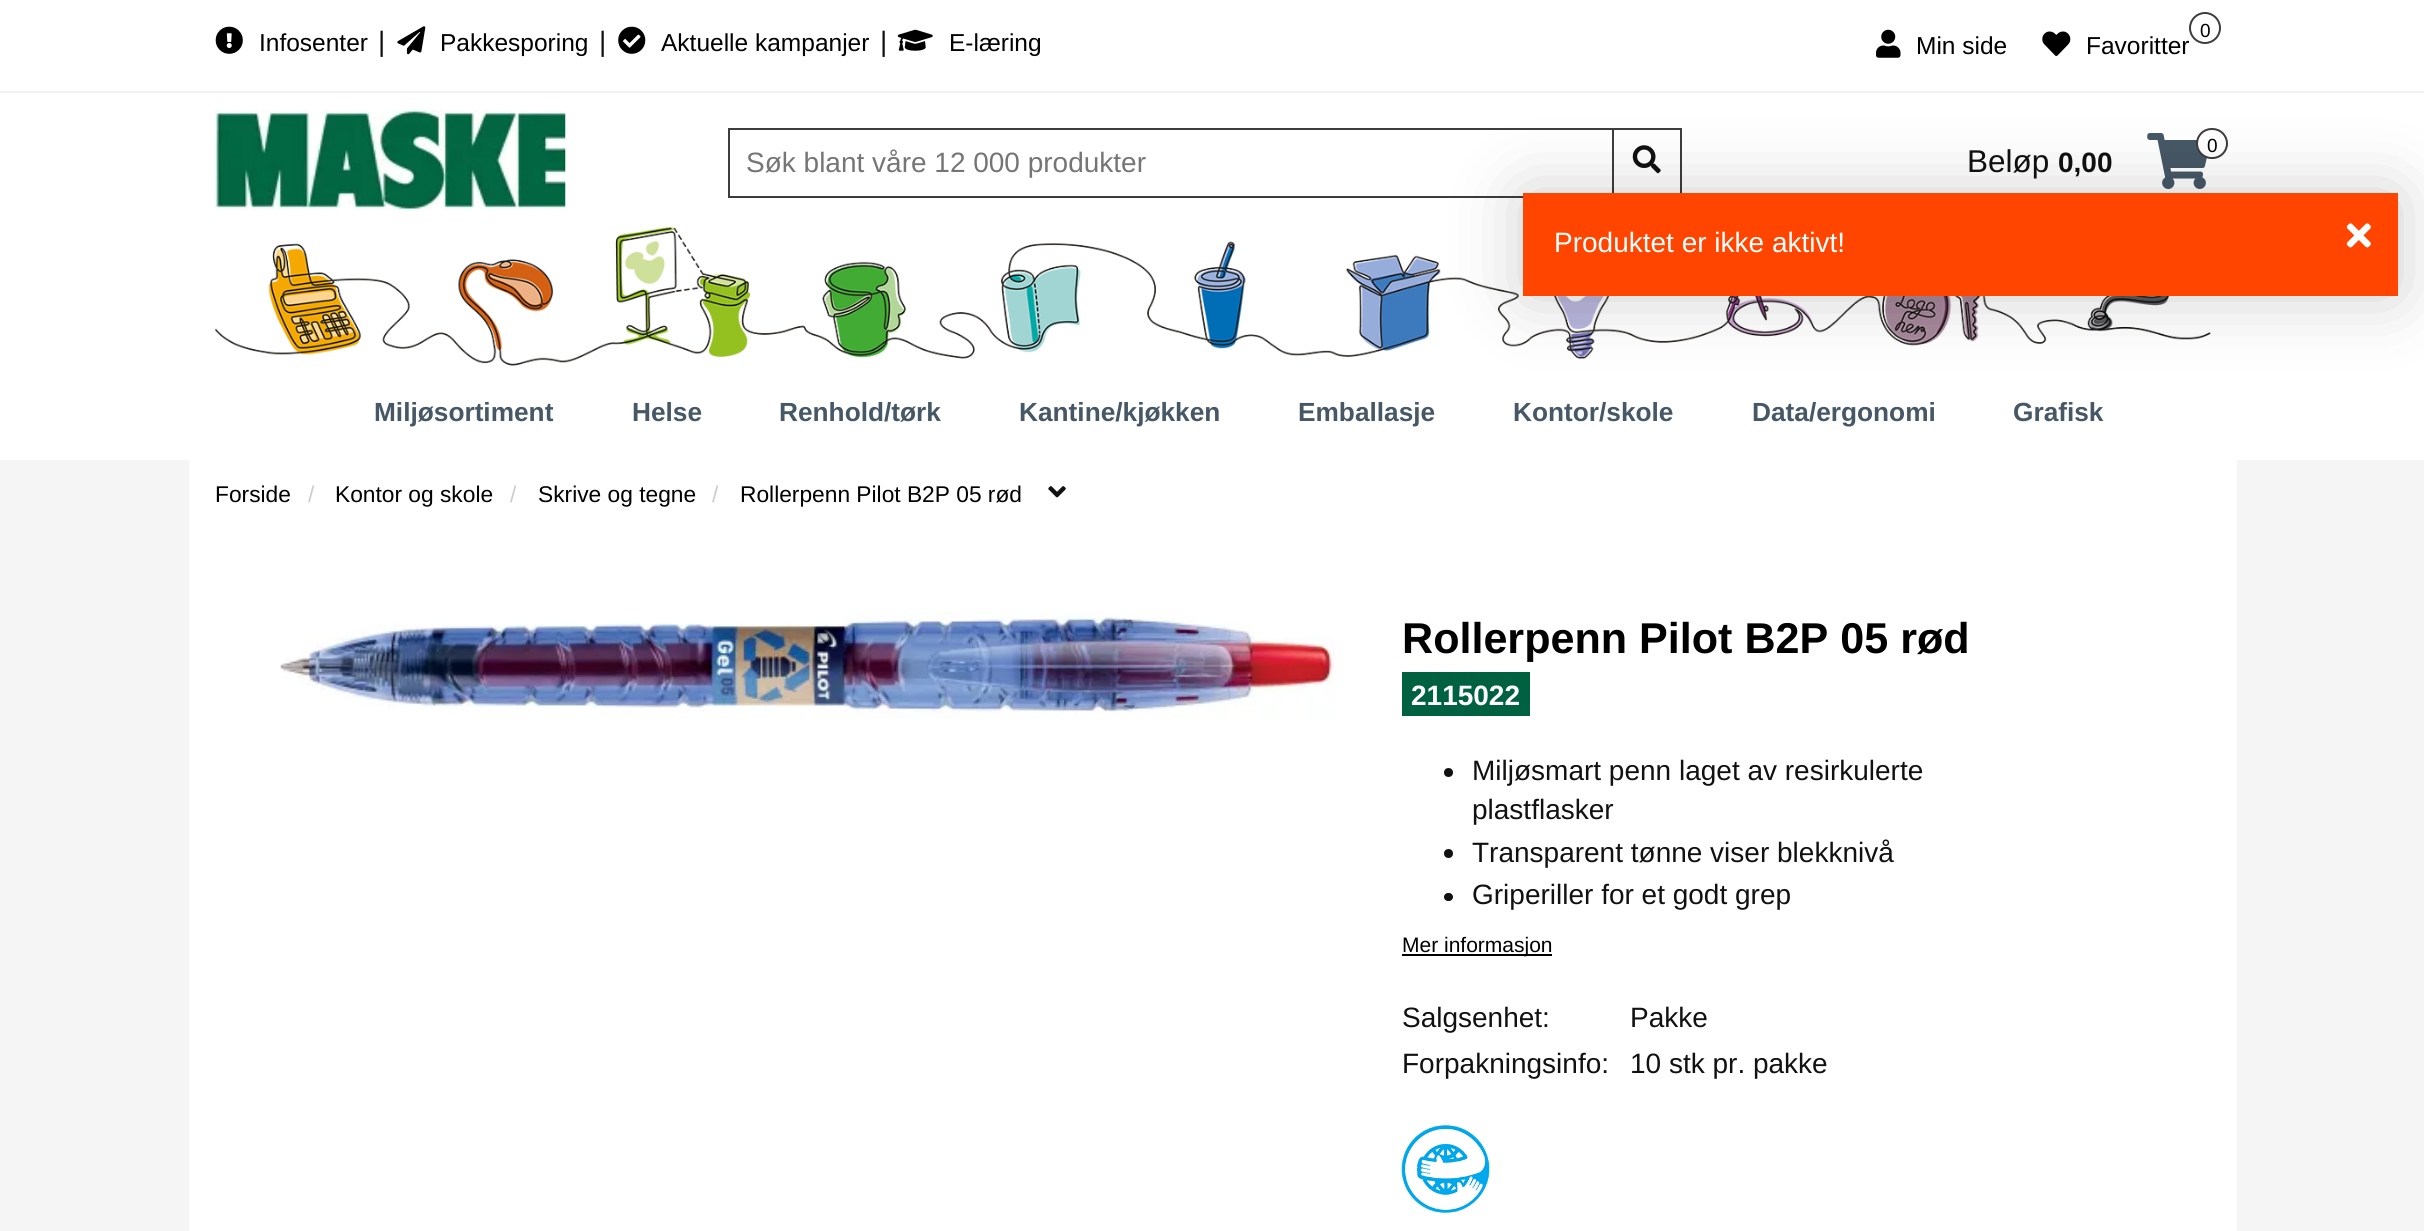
#include <cairo.h>
#include <math.h>
#include <stddef.h>


static void rgb(cairo_t *cr, int r, int g, int b)
{
	cairo_set_source_rgb(cr, r / 255.0, g / 255.0, b / 255.0);
}

static void face(cairo_t *cr, const char *family, double size, int italic, int bold)
{
	cairo_select_font_face(cr, family, italic ? CAIRO_FONT_SLANT_ITALIC : CAIRO_FONT_SLANT_NORMAL,
		bold ? CAIRO_FONT_WEIGHT_BOLD : CAIRO_FONT_WEIGHT_NORMAL);
	cairo_set_font_size(cr, size);
}

static void label(cairo_t *cr, double x, double y, const char *s)
{
	cairo_move_to(cr, x, y);
	cairo_show_text(cr, s);
}

static void rect(cairo_t *cr, double x, double y, double w, double h)
{
	cairo_rectangle(cr, x, y, w, h);
	cairo_fill(cr);
}

static void rrect(cairo_t *cr, double x, double y, double w, double h, double r)
{
	cairo_new_sub_path(cr);
	cairo_arc(cr, x + w - r, y + h - r, r, 0, M_PI / 2);
	cairo_arc(cr, x + r, y + h - r, r, M_PI / 2, M_PI);
	cairo_arc(cr, x + r, y + r, r, M_PI, 1.5 * M_PI);
	cairo_arc(cr, x + w - r, y + r, r, 1.5 * M_PI, 2 * M_PI);
	cairo_close_path(cr);
}

static void soft_shadow(cairo_t *cr, double x, double y, double w, double h, double r, double blur, double alpha)
{
	cairo_push_group_with_content(cr, CAIRO_CONTENT_ALPHA);
	cairo_set_operator(cr, CAIRO_OPERATOR_SOURCE);
	for (int i = 15; i >= -15 && fmin(w, h) + blur * i / 3 > 0; i -= 2) {
		double e = blur * i / 6;
		cairo_set_source_rgba(cr, 0, 0, 0, alpha * erfc((i - 1) / 8.5) / 2);
		rrect(cr, x - e, y - e, w + 2 * e, h + 2 * e, fmax(0, fmin(r + e + blur * .6, fmin(w, h) / 2 + e)));
		cairo_fill(cr);
	}
	cairo_pattern_t *soft = cairo_pop_group(cr);
	cairo_mask(cr, soft);
	cairo_pattern_destroy(soft);
}

static void image(cairo_t *cr, const char *path, double x, double y, double w, double h)
{
	cairo_surface_t *image = cairo_image_surface_create_from_png(path);
	cairo_save(cr);
	cairo_set_source_surface(cr, image, x, y);
	cairo_rectangle(cr, x, y, w, h);
	cairo_fill(cr);
	cairo_restore(cr);
	cairo_surface_destroy(image);
}

static void draw(cairo_t *cr) {
	rgb(cr, 255, 255, 255);
	cairo_paint(cr);
	rgb(cr, 242, 242, 242);
	rect(cr, 0, 91, 2424, 2);
	image(cr, "image0.png", 215, 26, 28, 28);
	face(cr, "Liberation Sans", 24.5, 0, 0);
	rgb(cr, 0, 0, 0);
	label(cr, 259, 51, "Infosenter");
	face(cr, "Liberation Sans", 28, 0, 0);
	rgb(cr, 17, 17, 17);
	label(cr, 378, 51, "|");
	image(cr, "image1.png", 397, 26, 29, 29);
	face(cr, "Liberation Sans", 24.5, 0, 0);
	rgb(cr, 0, 0, 0);
	label(cr, 440, 51, "Pakkesporing");
	face(cr, "Liberation Sans", 28, 0, 0);
	rgb(cr, 17, 17, 17);
	label(cr, 599, 51, "|");
	image(cr, "image2.png", 618, 26, 28, 28);
	face(cr, "Liberation Sans", 24.5, 0, 0);
	rgb(cr, 0, 0, 0);
	label(cr, 661, 51, "Aktuelle kampanjer");
	face(cr, "Liberation Sans", 28, 0, 0);
	rgb(cr, 17, 17, 17);
	label(cr, 880, 51, "|");
	image(cr, "image3.png", 897, 29, 36, 22);
	face(cr, "Liberation Sans", 24.5, 0, 0);
	rgb(cr, 0, 0, 0);
	label(cr, 949, 51, "E-læring");
	image(cr, "image4.png", 1876, 29, 25, 29);
	label(cr, 1916, 54, "Min side");
	cairo_new_path(cr);
	cairo_arc(cr, 2205, 28, 15, 0, 2 * M_PI);
	rgb(cr, 61, 61, 61);
	cairo_stroke(cr);
	face(cr, "Liberation Sans", 19, 0, 0);
	rgb(cr, 0, 0, 0);
	label(cr, 2200, 37, "0");
	image(cr, "image5.png", 2042, 31, 29, 25);
	face(cr, "Liberation Sans", 24.5, 0, 0);
	label(cr, 2086, 54, "Favoritter");
	image(cr, "image6.png", 215, 110, 351, 100);
	cairo_rectangle(cr, 729, 129, 891, 68);
	rgb(cr, 61, 61, 61);
	cairo_stroke(cr);
	face(cr, "Liberation Sans", 28, 0, 0);
	rgb(cr, 117, 117, 117);
	label(cr, 746, 172, "Søk blant våre 12 000 produkter");
	rgb(cr, 255, 255, 255);
	rect(cr, 1619, 130, 2, 63);
	cairo_rectangle(cr, 1613, 129, 68, 68);
	rgb(cr, 61, 61, 61);
	cairo_stroke(cr);
	image(cr, "image7.png", 1632, 145, 29, 29);
	image(cr, "image8.png", 2147, 133, 60, 56);
	rgb(cr, 255, 255, 255);
	rrect(cr, 2197, 129, 30, 29, 14.5);
	cairo_fill_preserve(cr);
	rgb(cr, 61, 61, 61);
	cairo_stroke(cr);
	face(cr, "Liberation Sans", 19, 0, 0);
	rgb(cr, 0, 0, 0);
	label(cr, 2207, 152, "0");
	face(cr, "Liberation Sans", 31.5, 0, 0);
	rgb(cr, 17, 17, 17);
	label(cr, 1967, 172, "Beløp");
	face(cr, "Liberation Sans", 28, 0, 1);
	label(cr, 2058, 172, "0,00");
	image(cr, "image9.png", 215, 227, 1996, 139);
	face(cr, "Liberation Sans", 26.25, 0, 1);
	rgb(cr, 70, 87, 102);
	label(cr, 374, 421, "Miljøsortiment");
	label(cr, 632, 421, "Helse");
	label(cr, 779, 421, "Renhold/tørk");
	label(cr, 1019, 421, "Kantine/kjøkken");
	label(cr, 1298, 421, "Emballasje");
	label(cr, 1513, 421, "Kontor/skole");
	label(cr, 1752, 421, "Data/ergonomi");
	label(cr, 2013, 421, "Grafisk");
	rgb(cr, 0, 0, 0);
	soft_shadow(cr, 1523, 193, 875, 103, 4, 35, 0.2);
	rgb(cr, 255, 69, 0);
	rect(cr, 1523, 193, 875, 103);
	face(cr, "Liberation Sans", 28, 0, 0);
	rgb(cr, 255, 255, 255);
	label(cr, 1554, 252, "Produktet er ikke aktivt!");
	image(cr, "image10.png", 2346, 223, 25, 25);
	rgb(cr, 245, 245, 245);
	rect(cr, 0, 460, 2424, 771);
	rgb(cr, 255, 255, 255);
	rect(cr, 189, 460, 2048, 771);
	face(cr, "Liberation Sans", 22.75, 0, 0);
	rgb(cr, 0, 0, 0);
	label(cr, 215, 502, "Forside");
	rgb(cr, 204, 204, 204);
	label(cr, 308, 502, "/");
	rgb(cr, 0, 0, 0);
	label(cr, 335, 502, "Kontor og skole");
	rgb(cr, 204, 204, 204);
	label(cr, 510, 502, "/");
	rgb(cr, 0, 0, 0);
	label(cr, 538, 502, "Skrive og tegne");
	rgb(cr, 204, 204, 204);
	label(cr, 712, 502, "/");
	rgb(cr, 0, 0, 0);
	label(cr, 740, 502, "Rollerpenn Pilot B2P 05 rød");
	image(cr, "image11.png", 1048, 486, 18, 12);
	image(cr, "image12.png", 280, 611, 1055, 108);
	face(cr, "Liberation Sans", 43.1, 0, 1);
	label(cr, 1402, 653, "Rollerpenn Pilot B2P 05 rød");
	rgb(cr, 0, 97, 65);
	rect(cr, 1402, 672, 128, 44);
	face(cr, "Liberation Sans", 28, 0, 1);
	rgb(cr, 255, 255, 255);
	label(cr, 1411, 705, "2115022");
	rgb(cr, 17, 17, 17);
	cairo_new_path(cr);
	cairo_arc(cr, 1448.5, 772.5, 4.5, 0, 2 * M_PI);
	cairo_fill(cr);
	face(cr, "Liberation Sans", 28, 0, 0);
	label(cr, 1472, 780, "Miljøsmart penn laget av resirkulerte");
	label(cr, 1472, 819, "plastflasker");
	cairo_new_path(cr);
	cairo_arc(cr, 1448.5, 853.5, 4.5, 0, 2 * M_PI);
	cairo_fill(cr);
	label(cr, 1472, 862, "Transparent tønne viser blekknivå");
	rrect(cr, 1444, 893, 9, 8, 4);
	cairo_fill(cr);
	label(cr, 1472, 904, "Griperiller for et godt grep");
	rgb(cr, 0, 0, 0);
	rect(cr, 1402, 954, 150, 2);
	face(cr, "Liberation Sans", 21, 0, 0);
	label(cr, 1402, 952, "Mer informasjon");
	face(cr, "Liberation Sans", 28, 0, 0);
	rgb(cr, 17, 17, 17);
	label(cr, 1402, 1027, "Salgsenhet:");
	label(cr, 1630, 1027, "Pakke");
	label(cr, 1402, 1073, "Forpakningsinfo:");
	label(cr, 1630, 1073, "10 stk pr. pakke");
	image(cr, "image13.png", 1401, 1125, 89, 88);
}

int main(void) {
	cairo_surface_t *surface = cairo_image_surface_create(CAIRO_FORMAT_RGB24, 2424, 1231);
	cairo_t *cr = cairo_create(surface);
	cairo_font_options_t *options = cairo_font_options_create();
	cairo_font_options_set_hint_metrics(options, CAIRO_HINT_METRICS_OFF);
	cairo_font_options_set_hint_style(options, CAIRO_HINT_STYLE_NONE);
	cairo_set_font_options(cr, options);
	cairo_set_miter_limit(cr, 4);
	draw(cr);
	cairo_surface_write_to_png(surface, "render.png");
	cairo_font_options_destroy(options);
	cairo_destroy(cr);
	cairo_surface_destroy(surface);
	return 0;
}
